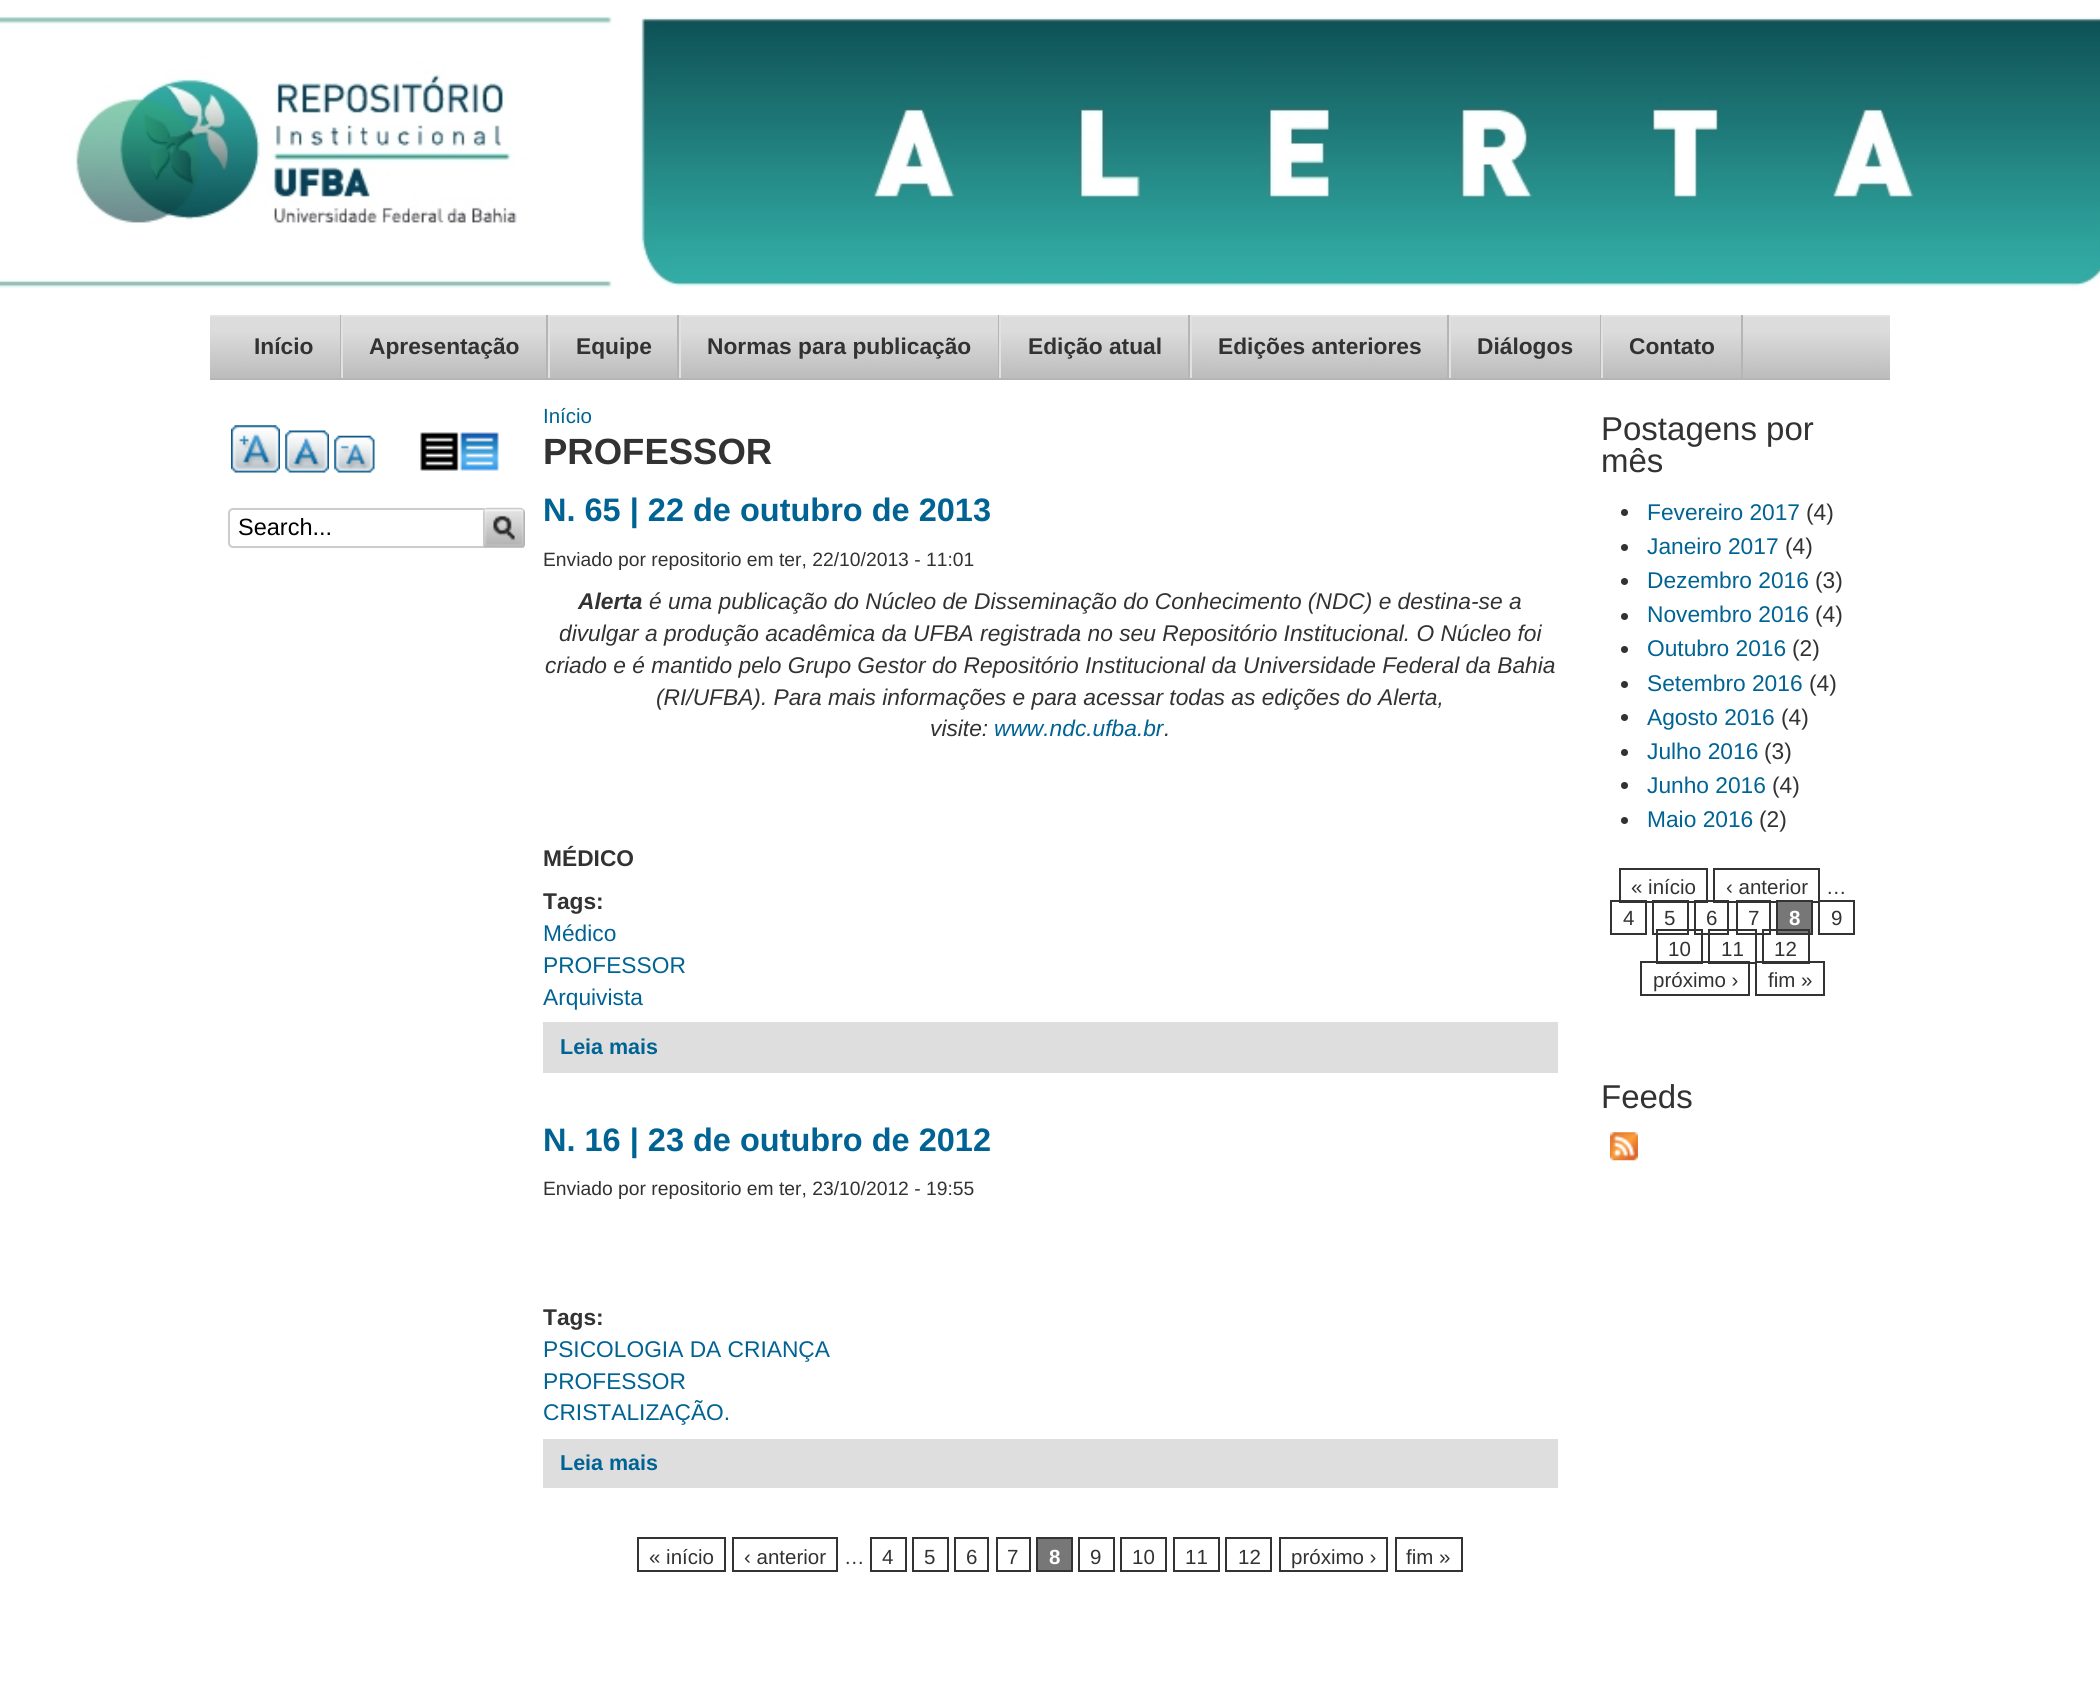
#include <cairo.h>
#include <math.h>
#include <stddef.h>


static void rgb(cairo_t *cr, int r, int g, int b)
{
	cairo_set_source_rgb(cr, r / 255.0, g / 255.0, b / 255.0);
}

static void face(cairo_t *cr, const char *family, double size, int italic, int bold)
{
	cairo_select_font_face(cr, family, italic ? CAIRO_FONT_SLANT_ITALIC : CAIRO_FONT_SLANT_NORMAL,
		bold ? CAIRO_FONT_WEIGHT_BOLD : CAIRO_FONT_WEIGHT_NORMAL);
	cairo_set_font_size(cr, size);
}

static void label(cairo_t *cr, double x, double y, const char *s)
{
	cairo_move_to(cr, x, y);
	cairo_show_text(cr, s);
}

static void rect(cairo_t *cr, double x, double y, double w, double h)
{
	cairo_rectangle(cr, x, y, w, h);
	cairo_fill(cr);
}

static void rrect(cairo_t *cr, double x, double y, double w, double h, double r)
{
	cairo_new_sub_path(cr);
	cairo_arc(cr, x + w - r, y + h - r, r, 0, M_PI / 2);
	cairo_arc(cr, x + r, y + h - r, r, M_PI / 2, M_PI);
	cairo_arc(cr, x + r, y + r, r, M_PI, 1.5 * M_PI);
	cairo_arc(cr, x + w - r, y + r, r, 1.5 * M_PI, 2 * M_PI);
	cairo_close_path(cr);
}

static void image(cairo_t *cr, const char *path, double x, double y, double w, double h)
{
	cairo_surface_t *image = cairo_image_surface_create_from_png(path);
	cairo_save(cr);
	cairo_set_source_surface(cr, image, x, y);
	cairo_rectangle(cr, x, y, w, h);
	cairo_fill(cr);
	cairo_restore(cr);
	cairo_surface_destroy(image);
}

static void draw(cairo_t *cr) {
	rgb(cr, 255, 255, 255);
	cairo_paint(cr);
	image(cr, "image0.png", 0, 16, 2100, 273);
	image(cr, "image1.png", 210, 315, 1680, 63);
	rgb(cr, 181, 181, 180);
	rect(cr, 210, 378, 1680, 2);
	rect(cr, 340, 315, 1, 63);
	face(cr, "Liberation Sans", 22.75, 0, 1);
	rgb(cr, 50, 50, 50);
	label(cr, 254, 354, "Início");
	rgb(cr, 181, 181, 180);
	rect(cr, 546, 315, 2, 63);
	rgb(cr, 225, 225, 225);
	rect(cr, 341, 315, 2, 63);
	rgb(cr, 50, 50, 50);
	label(cr, 369, 354, "Apresentação");
	rgb(cr, 181, 181, 180);
	rect(cr, 677, 315, 2, 63);
	rgb(cr, 225, 225, 225);
	rect(cr, 548, 315, 2, 63);
	rgb(cr, 50, 50, 50);
	label(cr, 576, 354, "Equipe");
	rgb(cr, 181, 181, 180);
	rect(cr, 998, 315, 1, 63);
	rgb(cr, 225, 225, 225);
	rect(cr, 679, 315, 2, 63);
	rgb(cr, 50, 50, 50);
	label(cr, 707, 354, "Normas para publicação");
	rgb(cr, 181, 181, 180);
	rect(cr, 1188, 315, 2, 63);
	rgb(cr, 225, 225, 225);
	rect(cr, 999, 315, 2, 63);
	rgb(cr, 50, 50, 50);
	label(cr, 1028, 354, "Edição atual");
	rgb(cr, 181, 181, 180);
	rect(cr, 1447, 315, 2, 63);
	rgb(cr, 225, 225, 225);
	rect(cr, 1190, 315, 2, 63);
	rgb(cr, 50, 50, 50);
	label(cr, 1218, 354, "Edições anteriores");
	rgb(cr, 181, 181, 180);
	rect(cr, 1600, 315, 1, 63);
	rgb(cr, 225, 225, 225);
	rect(cr, 1449, 315, 2, 63);
	rgb(cr, 50, 50, 50);
	label(cr, 1477, 354, "Diálogos");
	rgb(cr, 181, 181, 180);
	rect(cr, 1741, 315, 2, 63);
	rgb(cr, 225, 225, 225);
	rect(cr, 1601, 315, 2, 63);
	rgb(cr, 50, 50, 50);
	label(cr, 1629, 354, "Contato");
	image(cr, "image2.png", 231, 425, 49, 48);
	image(cr, "image3.png", 285, 430, 44, 43);
	image(cr, "image4.png", 334, 435, 41, 38);
	image(cr, "image5.png", 420, 432, 39, 39);
	image(cr, "image6.png", 458, 432, 41, 39);
	rrect(cr, 229, 509, 258, 38, 4);
	rgb(cr, 204, 204, 204);
	cairo_stroke(cr);
	face(cr, "Liberation Sans", 23.5, 0, 0);
	rgb(cr, 0, 0, 0);
	label(cr, 238, 535, "Search...");
	image(cr, "image7.png", 483, 507, 42, 41);
	face(cr, "Liberation Sans", 20.5, 0, 0);
	rgb(cr, 0, 99, 147);
	label(cr, 543, 423, "Início");
	face(cr, "Liberation Sans", 36.5, 0, 1);
	rgb(cr, 50, 50, 50);
	label(cr, 543, 464, "PROFESSOR");
	face(cr, "Liberation Sans", 32.5, 0, 1);
	rgb(cr, 0, 99, 147);
	label(cr, 543, 521, "N. 65 | 22 de outubro de 2013");
	face(cr, "Liberation Sans", 19.3, 0, 0);
	rgb(cr, 50, 50, 50);
	label(cr, 543, 566, "Enviado por repositorio em ter, 22/10/2013 - 11:01");
	face(cr, "Liberation Sans", 22.75, 1, 1);
	label(cr, 578, 609, "Alerta");
	face(cr, "Liberation Sans", 22.75, 1, 0);
	label(cr, 649, 609, "é uma publicação do Núcleo de Disseminação do Conhecimento (NDC) e destina-se a");
	label(cr, 559, 641, "divulgar a produção acadêmica da UFBA registrada no seu Repositório Institucional. O Núcleo foi");
	label(cr, 545, 673, "criado e é mantido pelo Grupo Gestor do Repositório Institucional da Universidade Federal da Bahia");
	label(cr, 656, 705, "(RI/UFBA). Para mais informações e para acessar todas as edições do Alerta,");
	label(cr, 930, 736, "visite:");
	rgb(cr, 0, 99, 147);
	label(cr, 994, 736, "www.ndc.ufba.br");
	rgb(cr, 50, 50, 50);
	label(cr, 1164, 736, ".");
	face(cr, "Liberation Sans", 22.75, 0, 1);
	label(cr, 543, 866, "MÉDICO");
	label(cr, 543, 909, "Tags:");
	face(cr, "Liberation Sans", 22.75, 0, 0);
	rgb(cr, 0, 99, 147);
	label(cr, 543, 941, "Médico");
	label(cr, 543, 973, "PROFESSOR");
	label(cr, 543, 1005, "Arquivista");
	rgb(cr, 222, 222, 222);
	rect(cr, 543, 1022, 1015, 51);
	face(cr, "Liberation Sans", 21.5, 0, 1);
	rgb(cr, 0, 99, 147);
	label(cr, 560, 1054, "Leia mais");
	face(cr, "Liberation Sans", 32.5, 0, 1);
	label(cr, 543, 1151, "N. 16 | 23 de outubro de 2012");
	face(cr, "Liberation Sans", 19.3, 0, 0);
	rgb(cr, 50, 50, 50);
	label(cr, 543, 1195, "Enviado por repositorio em ter, 23/10/2012 - 19:55");
	face(cr, "Liberation Sans", 22.75, 0, 1);
	label(cr, 543, 1325, "Tags:");
	face(cr, "Liberation Sans", 22.75, 0, 0);
	rgb(cr, 0, 99, 147);
	label(cr, 543, 1357, "PSICOLOGIA DA CRIANÇA");
	label(cr, 543, 1389, "PROFESSOR");
	label(cr, 543, 1420, "CRISTALIZAÇÃO.");
	rgb(cr, 222, 222, 222);
	rect(cr, 543, 1439, 1015, 49);
	face(cr, "Liberation Sans", 21.5, 0, 1);
	rgb(cr, 0, 99, 147);
	label(cr, 560, 1470, "Leia mais");
	cairo_rectangle(cr, 638, 1538, 87, 33);
	rgb(cr, 51, 51, 51);
	cairo_stroke(cr);
	face(cr, "Liberation Sans", 20.5, 0, 0);
	rgb(cr, 50, 50, 50);
	label(cr, 649, 1564, "« início");
	cairo_rectangle(cr, 733, 1538, 104, 33);
	rgb(cr, 51, 51, 51);
	cairo_stroke(cr);
	rgb(cr, 50, 50, 50);
	label(cr, 744, 1564, "‹ anterior");
	label(cr, 844, 1564, "…");
	cairo_rectangle(cr, 871, 1538, 35, 33);
	rgb(cr, 51, 51, 51);
	cairo_stroke(cr);
	rgb(cr, 50, 50, 50);
	label(cr, 882, 1564, "4");
	cairo_rectangle(cr, 913, 1538, 35, 33);
	rgb(cr, 51, 51, 51);
	cairo_stroke(cr);
	rgb(cr, 50, 50, 50);
	label(cr, 924, 1564, "5");
	cairo_rectangle(cr, 955, 1538, 33, 33);
	rgb(cr, 51, 51, 51);
	cairo_stroke(cr);
	rgb(cr, 50, 50, 50);
	label(cr, 966, 1564, "6");
	cairo_rectangle(cr, 997, 1538, 33, 33);
	rgb(cr, 51, 51, 51);
	cairo_stroke(cr);
	rgb(cr, 50, 50, 50);
	label(cr, 1007, 1564, "7");
	rgb(cr, 119, 119, 119);
	cairo_rectangle(cr, 1037, 1538, 35, 33);
	cairo_fill_preserve(cr);
	rgb(cr, 51, 51, 51);
	cairo_stroke(cr);
	face(cr, "Liberation Sans", 20.5, 0, 1);
	rgb(cr, 255, 255, 255);
	label(cr, 1049, 1564, "8");
	cairo_rectangle(cr, 1079, 1538, 35, 33);
	rgb(cr, 51, 51, 51);
	cairo_stroke(cr);
	face(cr, "Liberation Sans", 20.5, 0, 0);
	rgb(cr, 50, 50, 50);
	label(cr, 1090, 1564, "9");
	cairo_rectangle(cr, 1121, 1538, 45, 33);
	rgb(cr, 51, 51, 51);
	cairo_stroke(cr);
	rgb(cr, 50, 50, 50);
	label(cr, 1132, 1564, "10");
	cairo_rectangle(cr, 1174, 1538, 45, 33);
	rgb(cr, 51, 51, 51);
	cairo_stroke(cr);
	rgb(cr, 50, 50, 50);
	label(cr, 1185, 1564, "11");
	cairo_rectangle(cr, 1226, 1538, 45, 33);
	rgb(cr, 51, 51, 51);
	cairo_stroke(cr);
	rgb(cr, 50, 50, 50);
	label(cr, 1238, 1564, "12");
	cairo_rectangle(cr, 1280, 1538, 107, 33);
	rgb(cr, 51, 51, 51);
	cairo_stroke(cr);
	rgb(cr, 50, 50, 50);
	label(cr, 1291, 1564, "próximo ›");
	cairo_rectangle(cr, 1396, 1538, 66, 33);
	rgb(cr, 51, 51, 51);
	cairo_stroke(cr);
	rgb(cr, 50, 50, 50);
	label(cr, 1406, 1564, "fim »");
	face(cr, "Liberation Sans", 33, 0, 0);
	label(cr, 1601, 440, "Postagens por");
	label(cr, 1601, 472, "mês");
	cairo_new_path(cr);
	cairo_arc(cr, 1624.5, 512.5, 3.5, 0, 2 * M_PI);
	cairo_fill(cr);
	face(cr, "Liberation Sans", 22.75, 0, 0);
	rgb(cr, 0, 99, 147);
	label(cr, 1647, 520, "Fevereiro 2017");
	rgb(cr, 50, 50, 50);
	label(cr, 1806, 520, "(4)");
	cairo_new_path(cr);
	cairo_arc(cr, 1624.5, 547.5, 3.5, 0, 2 * M_PI);
	cairo_fill(cr);
	rgb(cr, 0, 99, 147);
	label(cr, 1647, 554, "Janeiro 2017");
	rgb(cr, 50, 50, 50);
	label(cr, 1785, 554, "(4)");
	cairo_new_path(cr);
	cairo_arc(cr, 1624.5, 581.5, 3.5, 0, 2 * M_PI);
	cairo_fill(cr);
	rgb(cr, 0, 99, 147);
	label(cr, 1647, 588, "Dezembro 2016");
	rgb(cr, 50, 50, 50);
	label(cr, 1815, 588, "(3)");
	cairo_new_path(cr);
	cairo_arc(cr, 1624.5, 616.5, 3.5, 0, 2 * M_PI);
	cairo_fill(cr);
	rgb(cr, 0, 99, 147);
	label(cr, 1647, 622, "Novembro 2016");
	rgb(cr, 50, 50, 50);
	label(cr, 1815, 622, "(4)");
	cairo_new_path(cr);
	cairo_arc(cr, 1624.5, 649.5, 3.5, 0, 2 * M_PI);
	cairo_fill(cr);
	rgb(cr, 0, 99, 147);
	label(cr, 1647, 656, "Outubro 2016");
	rgb(cr, 50, 50, 50);
	label(cr, 1792, 656, "(2)");
	cairo_new_path(cr);
	cairo_arc(cr, 1624.5, 684.5, 3.5, 0, 2 * M_PI);
	cairo_fill(cr);
	rgb(cr, 0, 99, 147);
	label(cr, 1647, 691, "Setembro 2016");
	rgb(cr, 50, 50, 50);
	label(cr, 1809, 691, "(4)");
	cairo_new_path(cr);
	cairo_arc(cr, 1624.5, 717.5, 3.5, 0, 2 * M_PI);
	cairo_fill(cr);
	rgb(cr, 0, 99, 147);
	label(cr, 1647, 725, "Agosto 2016");
	rgb(cr, 50, 50, 50);
	label(cr, 1781, 725, "(4)");
	cairo_new_path(cr);
	cairo_arc(cr, 1624.5, 752.5, 3.5, 0, 2 * M_PI);
	cairo_fill(cr);
	rgb(cr, 0, 99, 147);
	label(cr, 1647, 759, "Julho 2016");
	rgb(cr, 50, 50, 50);
	label(cr, 1764, 759, "(3)");
	cairo_new_path(cr);
	cairo_arc(cr, 1624.5, 785.5, 3.5, 0, 2 * M_PI);
	cairo_fill(cr);
	rgb(cr, 0, 99, 147);
	label(cr, 1647, 793, "Junho 2016");
	rgb(cr, 50, 50, 50);
	label(cr, 1772, 793, "(4)");
	cairo_new_path(cr);
	cairo_arc(cr, 1624.5, 820.5, 3.5, 0, 2 * M_PI);
	cairo_fill(cr);
	rgb(cr, 0, 99, 147);
	label(cr, 1647, 827, "Maio 2016");
	rgb(cr, 50, 50, 50);
	label(cr, 1759, 827, "(2)");
	cairo_rectangle(cr, 1620, 869, 87, 33);
	rgb(cr, 51, 51, 51);
	cairo_stroke(cr);
	face(cr, "Liberation Sans", 20.5, 0, 0);
	rgb(cr, 50, 50, 50);
	label(cr, 1631, 894, "« início");
	cairo_rectangle(cr, 1714, 869, 105, 33);
	rgb(cr, 51, 51, 51);
	cairo_stroke(cr);
	rgb(cr, 50, 50, 50);
	label(cr, 1726, 894, "‹ anterior");
	label(cr, 1826, 894, "…");
	cairo_rectangle(cr, 1611, 901, 35, 33);
	rgb(cr, 51, 51, 51);
	cairo_stroke(cr);
	rgb(cr, 50, 50, 50);
	label(cr, 1623, 925, "4");
	cairo_rectangle(cr, 1653, 901, 35, 33);
	rgb(cr, 51, 51, 51);
	cairo_stroke(cr);
	rgb(cr, 50, 50, 50);
	label(cr, 1664, 925, "5");
	cairo_rectangle(cr, 1695, 901, 33, 33);
	rgb(cr, 51, 51, 51);
	cairo_stroke(cr);
	rgb(cr, 50, 50, 50);
	label(cr, 1706, 925, "6");
	cairo_rectangle(cr, 1737, 901, 33, 33);
	rgb(cr, 51, 51, 51);
	cairo_stroke(cr);
	rgb(cr, 50, 50, 50);
	label(cr, 1748, 925, "7");
	rgb(cr, 119, 119, 119);
	cairo_rectangle(cr, 1777, 901, 35, 33);
	cairo_fill_preserve(cr);
	rgb(cr, 51, 51, 51);
	cairo_stroke(cr);
	face(cr, "Liberation Sans", 20.5, 0, 1);
	rgb(cr, 255, 255, 255);
	label(cr, 1789, 925, "8");
	cairo_rectangle(cr, 1819, 901, 35, 33);
	rgb(cr, 51, 51, 51);
	cairo_stroke(cr);
	face(cr, "Liberation Sans", 20.5, 0, 0);
	rgb(cr, 50, 50, 50);
	label(cr, 1831, 925, "9");
	cairo_rectangle(cr, 1657, 930, 45, 33);
	rgb(cr, 51, 51, 51);
	cairo_stroke(cr);
	rgb(cr, 50, 50, 50);
	label(cr, 1668, 956, "10");
	cairo_rectangle(cr, 1709, 930, 47, 33);
	rgb(cr, 51, 51, 51);
	cairo_stroke(cr);
	rgb(cr, 50, 50, 50);
	label(cr, 1721, 956, "11");
	cairo_rectangle(cr, 1763, 930, 46, 33);
	rgb(cr, 51, 51, 51);
	cairo_stroke(cr);
	rgb(cr, 50, 50, 50);
	label(cr, 1774, 956, "12");
	cairo_rectangle(cr, 1641, 962, 108, 33);
	rgb(cr, 51, 51, 51);
	cairo_stroke(cr);
	rgb(cr, 50, 50, 50);
	label(cr, 1653, 987, "próximo ›");
	cairo_rectangle(cr, 1756, 962, 68, 33);
	rgb(cr, 51, 51, 51);
	cairo_stroke(cr);
	rgb(cr, 50, 50, 50);
	label(cr, 1768, 987, "fim »");
	face(cr, "Liberation Sans", 33, 0, 0);
	label(cr, 1601, 1108, "Feeds");
	image(cr, "image8.png", 1610, 1132, 28, 29);
}

int main(void) {
	cairo_surface_t *surface = cairo_image_surface_create(CAIRO_FORMAT_RGB24, 2100, 1696);
	cairo_t *cr = cairo_create(surface);
	cairo_font_options_t *options = cairo_font_options_create();
	cairo_font_options_set_hint_metrics(options, CAIRO_HINT_METRICS_OFF);
	cairo_font_options_set_hint_style(options, CAIRO_HINT_STYLE_NONE);
	cairo_set_font_options(cr, options);
	cairo_set_miter_limit(cr, 4);
	draw(cr);
	cairo_surface_write_to_png(surface, "render.png");
	cairo_font_options_destroy(options);
	cairo_destroy(cr);
	cairo_surface_destroy(surface);
	return 0;
}
